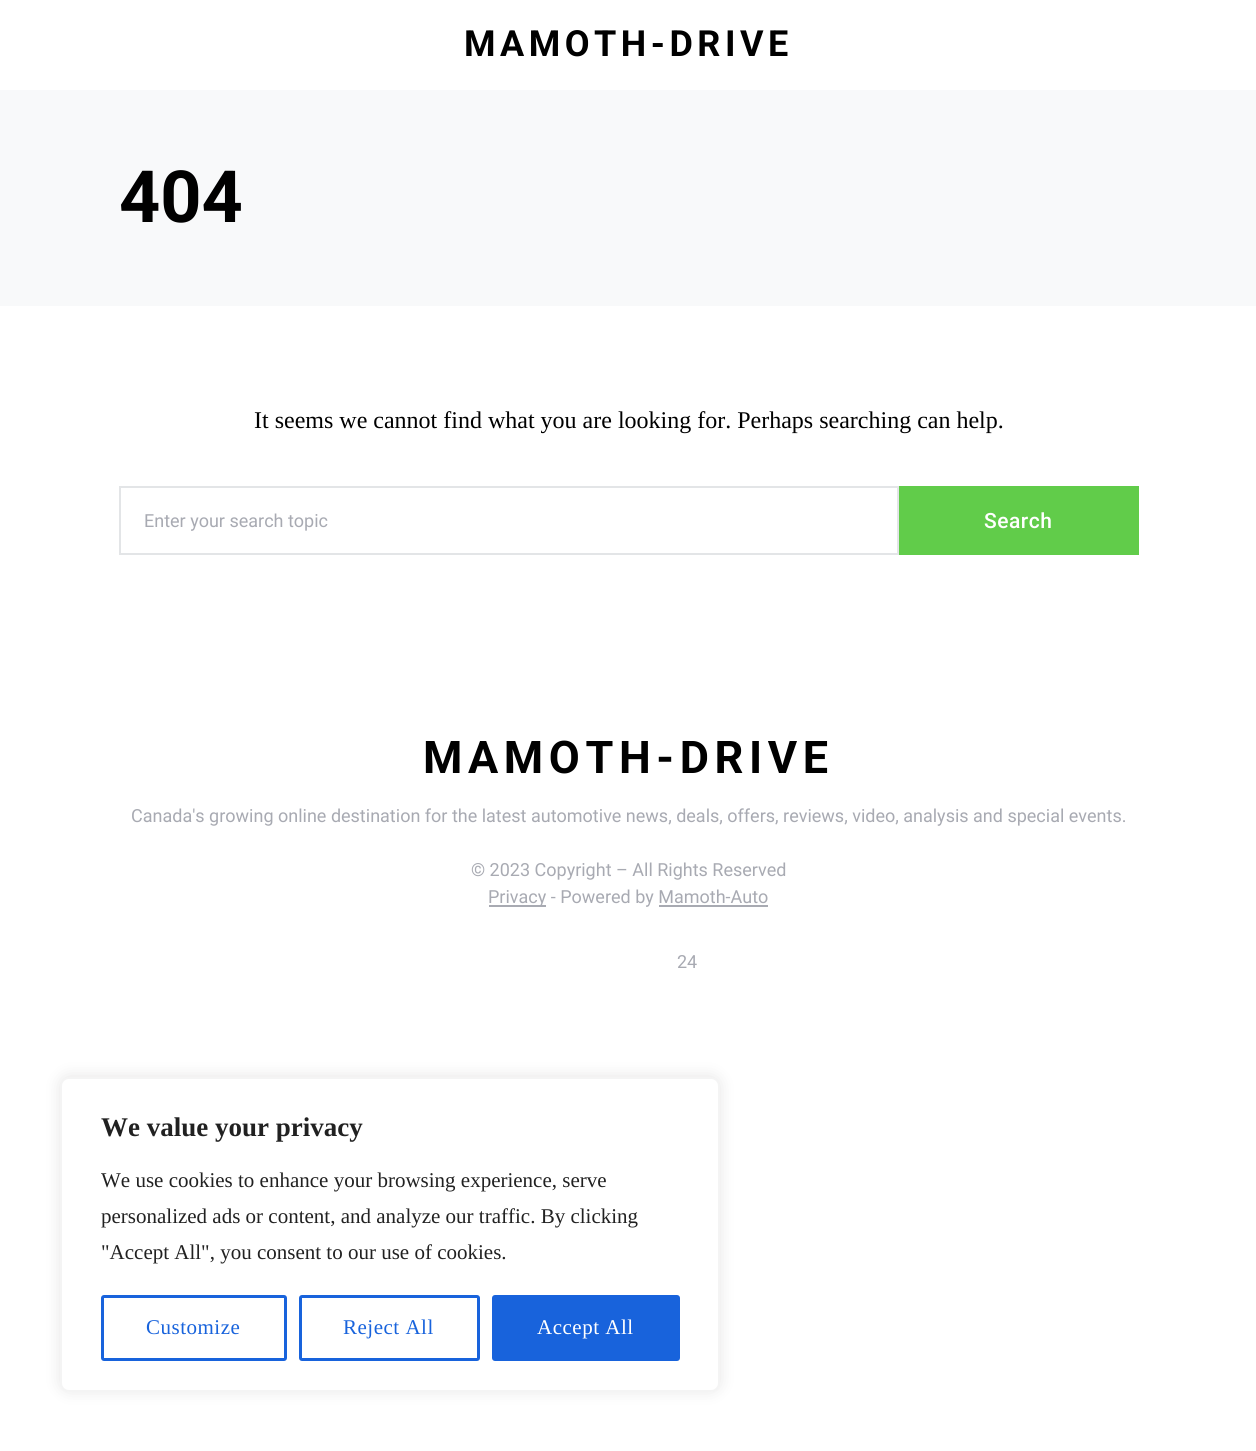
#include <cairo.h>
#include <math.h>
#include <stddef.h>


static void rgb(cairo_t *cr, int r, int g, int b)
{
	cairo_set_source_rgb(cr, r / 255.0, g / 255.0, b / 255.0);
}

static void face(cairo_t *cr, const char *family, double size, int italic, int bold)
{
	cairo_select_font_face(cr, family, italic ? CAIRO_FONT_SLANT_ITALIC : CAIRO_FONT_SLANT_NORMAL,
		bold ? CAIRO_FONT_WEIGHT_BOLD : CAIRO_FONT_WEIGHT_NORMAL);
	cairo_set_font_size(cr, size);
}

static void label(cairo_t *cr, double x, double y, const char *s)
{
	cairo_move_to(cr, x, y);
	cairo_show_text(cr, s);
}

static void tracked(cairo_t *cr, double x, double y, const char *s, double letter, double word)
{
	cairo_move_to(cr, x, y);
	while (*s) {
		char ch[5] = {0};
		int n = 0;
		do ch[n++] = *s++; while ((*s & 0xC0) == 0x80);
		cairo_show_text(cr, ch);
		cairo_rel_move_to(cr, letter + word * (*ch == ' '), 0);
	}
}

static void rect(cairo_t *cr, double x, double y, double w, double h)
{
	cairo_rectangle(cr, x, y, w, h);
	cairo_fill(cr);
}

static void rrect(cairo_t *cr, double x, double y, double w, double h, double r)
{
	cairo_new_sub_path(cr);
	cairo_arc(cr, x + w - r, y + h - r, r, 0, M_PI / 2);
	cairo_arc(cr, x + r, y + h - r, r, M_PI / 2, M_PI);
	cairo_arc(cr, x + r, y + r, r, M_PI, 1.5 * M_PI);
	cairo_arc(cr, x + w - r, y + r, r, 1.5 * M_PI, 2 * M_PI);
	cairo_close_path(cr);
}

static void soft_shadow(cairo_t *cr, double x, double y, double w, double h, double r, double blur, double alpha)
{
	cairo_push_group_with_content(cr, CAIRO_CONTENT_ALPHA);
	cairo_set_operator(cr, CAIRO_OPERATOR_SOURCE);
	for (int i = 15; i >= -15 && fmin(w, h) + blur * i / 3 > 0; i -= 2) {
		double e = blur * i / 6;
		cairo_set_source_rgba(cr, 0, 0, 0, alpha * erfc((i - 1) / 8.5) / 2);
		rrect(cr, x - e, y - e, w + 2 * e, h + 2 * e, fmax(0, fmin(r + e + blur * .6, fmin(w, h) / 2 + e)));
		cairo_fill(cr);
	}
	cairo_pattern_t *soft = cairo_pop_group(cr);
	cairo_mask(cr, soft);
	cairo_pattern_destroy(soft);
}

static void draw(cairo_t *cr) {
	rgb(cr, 255, 255, 255);
	cairo_paint(cr);
	face(cr, "Roboto", 36, 0, 1);
	rgb(cr, 0, 0, 0);
	tracked(cr, 464, 56, "MAMOTH-DRIVE", 4.5, 0);
	rgb(cr, 248, 249, 250);
	rect(cr, 0, 90, 1256, 216);
	face(cr, "Roboto", 72, 0, 1);
	rgb(cr, 0, 0, 0);
	label(cr, 119, 222, "404");
	face(cr, "Liberation Serif", 24, 0, 0);
	label(cr, 254, 428, "It seems we cannot find what you are looking for. Perhaps searching can help.");
	cairo_rectangle(cr, 120, 487, 778, 67);
	rgb(cr, 227, 229, 231);
	cairo_stroke(cr);
	face(cr, "Roboto", 18, 0, 0);
	rgb(cr, 168, 170, 178);
	label(cr, 144, 527, "Enter your search topic");
	rgb(cr, 97, 204, 74);
	rect(cr, 899, 486, 240, 69);
	face(cr, "Roboto Medium", 21, 0, 0);
	rgb(cr, 255, 255, 255);
	tracked(cr, 984, 528, "Search", 0.5, 0);
	face(cr, "Roboto", 45, 0, 1);
	rgb(cr, 0, 0, 0);
	tracked(cr, 423, 773, "MAMOTH-DRIVE", 5.6, 0);
	face(cr, "Roboto", 18, 0, 0);
	rgb(cr, 168, 170, 178);
	label(cr, 131, 822, "Canada's growing online destination for the latest automotive news, deals, offers, reviews, video, analysis and special events.");
	label(cr, 471, 876, "© 2023 Copyright – All Rights Reserved");
	rect(cr, 489, 905, 57, 2);
	label(cr, 488, 903, "Privacy - Powered by Mamoth-Auto");
	rect(cr, 659, 905, 109, 2);
	label(cr, 677, 968, "24");
	rgb(cr, 172, 171, 171);
	soft_shadow(cr, 60, 1076, 660, 315, 9, 7.5, 0.3);
	rgb(cr, 255, 255, 255);
	rrect(cr, 61, 1078, 658, 313, 8);
	cairo_fill_preserve(cr);
	rgb(cr, 244, 244, 244);
	cairo_stroke(cr);
	face(cr, "Liberation Serif", 27, 0, 1);
	rgb(cr, 33, 33, 33);
	label(cr, 101, 1136, "We value your privacy");
	face(cr, "Liberation Serif", 21, 0, 0);
	label(cr, 101, 1187, "We use cookies to enhance your browsing experience, serve");
	label(cr, 101, 1223, "personalized ads or content, and analyze our traffic. By clicking");
	label(cr, 101, 1259, "\"Accept All\", you consent to our use of cookies.");
	rrect(cr, 102.5, 1296.5, 183, 63, 1.5);
	rgb(cr, 24, 99, 220);
	cairo_set_line_width(cr, 3);
	cairo_stroke(cr);
	tracked(cr, 146, 1334, "Customize", 0.5, 0);
	rrect(cr, 300.5, 1296.5, 178, 63, 1.5);
	cairo_stroke(cr);
	tracked(cr, 343, 1334, "Reject All", 0.5, 0);
	rrect(cr, 493.5, 1296.5, 185, 63, 1.5);
	cairo_fill_preserve(cr);
	cairo_stroke(cr);
	rgb(cr, 255, 255, 255);
	tracked(cr, 537, 1334, "Accept All", 0.5, 0);
}

int main(void) {
	cairo_surface_t *surface = cairo_image_surface_create(CAIRO_FORMAT_RGB24, 1256, 1451);
	cairo_t *cr = cairo_create(surface);
	cairo_font_options_t *options = cairo_font_options_create();
	cairo_font_options_set_hint_metrics(options, CAIRO_HINT_METRICS_OFF);
	cairo_font_options_set_hint_style(options, CAIRO_HINT_STYLE_NONE);
	cairo_set_font_options(cr, options);
	cairo_set_miter_limit(cr, 4);
	draw(cr);
	cairo_surface_write_to_png(surface, "render.png");
	cairo_font_options_destroy(options);
	cairo_destroy(cr);
	cairo_surface_destroy(surface);
	return 0;
}
